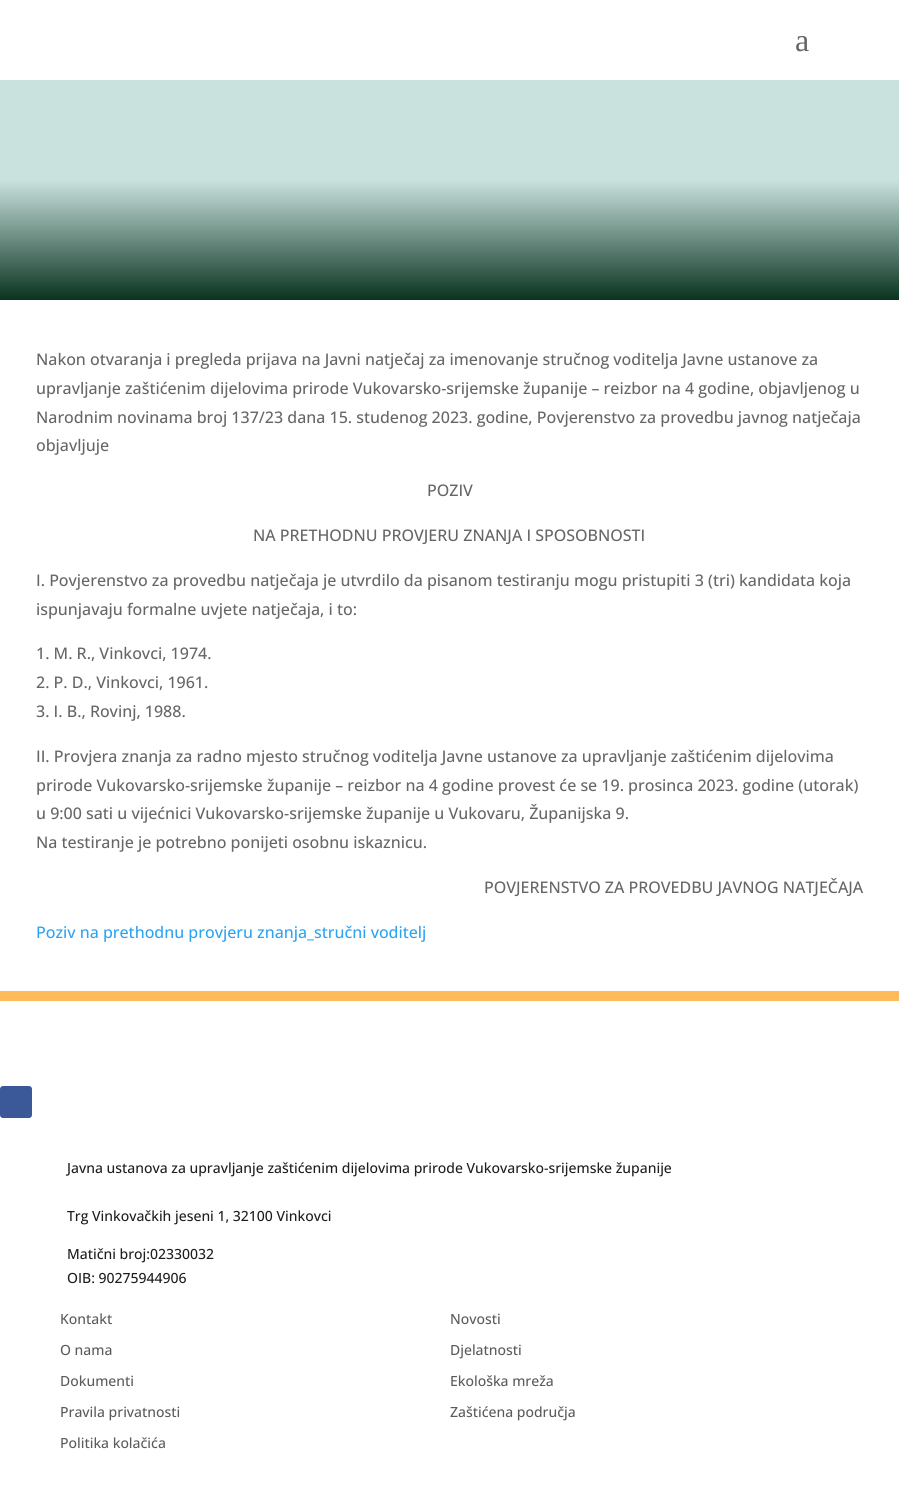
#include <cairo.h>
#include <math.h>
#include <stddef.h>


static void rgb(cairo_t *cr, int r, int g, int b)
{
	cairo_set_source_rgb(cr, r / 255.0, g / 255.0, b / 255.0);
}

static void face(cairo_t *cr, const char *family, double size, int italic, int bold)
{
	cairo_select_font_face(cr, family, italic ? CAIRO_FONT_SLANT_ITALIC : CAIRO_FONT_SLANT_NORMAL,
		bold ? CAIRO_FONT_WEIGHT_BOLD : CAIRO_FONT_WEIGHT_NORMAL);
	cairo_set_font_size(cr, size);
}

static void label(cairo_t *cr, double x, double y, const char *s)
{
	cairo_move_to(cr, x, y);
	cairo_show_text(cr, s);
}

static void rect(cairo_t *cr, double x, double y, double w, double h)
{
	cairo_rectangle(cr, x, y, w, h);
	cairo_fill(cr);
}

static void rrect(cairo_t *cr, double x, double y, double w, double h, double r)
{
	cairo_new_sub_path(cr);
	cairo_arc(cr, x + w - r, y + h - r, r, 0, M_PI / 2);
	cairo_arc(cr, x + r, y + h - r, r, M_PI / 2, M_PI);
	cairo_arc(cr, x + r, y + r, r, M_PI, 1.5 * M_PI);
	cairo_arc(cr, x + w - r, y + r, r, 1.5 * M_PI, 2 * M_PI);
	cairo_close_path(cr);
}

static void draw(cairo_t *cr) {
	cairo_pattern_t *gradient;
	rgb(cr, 255, 255, 255);
	cairo_paint(cr);
	face(cr, "Liberation Serif", 32, 0, 0);
	rgb(cr, 102, 102, 102);
	label(cr, 795, 51, "a");
	gradient = cairo_pattern_create_linear(450, 0, 450, 300);
	cairo_pattern_add_color_stop_rgba(gradient, 0.6, 0.788, 0.886, 0.871, 1);
	cairo_pattern_add_color_stop_rgba(gradient, 1, 0.039, 0.2, 0.125, 1);
	cairo_set_source(cr, gradient);
	cairo_pattern_destroy(gradient);
	rect(cr, 0, 80, 899, 220);
	face(cr, "Open Sans Medium", 16, 0, 0);
	rgb(cr, 102, 102, 102);
	label(cr, 36, 365, "Nakon otvaranja i pregleda prijava na Javni natječaj za imenovanje stručnog voditelja Javne ustanove za");
	label(cr, 36, 394, "upravljanje zaštićenim dijelovima prirode Vukovarsko-srijemske županije – reizbor na 4 godine, objavljenog u");
	label(cr, 36, 423, "Narodnim novinama broj 137/23 dana 15. studenog 2023. godine, Povjerenstvo za provedbu javnog natječaja");
	label(cr, 36, 451, "objavljuje");
	label(cr, 427, 496, "POZIV");
	label(cr, 253, 541, "NA PRETHODNU PROVJERU ZNANJA I SPOSOBNOSTI");
	label(cr, 36, 586, "I. Povjerenstvo za provedbu natječaja je utvrdilo da pisanom testiranju mogu pristupiti 3 (tri) kandidata koja");
	label(cr, 36, 615, "ispunjavaju formalne uvjete natječaja, i to:");
	label(cr, 36, 659, "1. M. R., Vinkovci, 1974.");
	label(cr, 36, 688, "2. P. D., Vinkovci, 1961.");
	label(cr, 36, 717, "3. I. B., Rovinj, 1988.");
	label(cr, 36, 762, "II. Provjera znanja za radno mjesto stručnog voditelja Javne ustanove za upravljanje zaštićenim dijelovima");
	label(cr, 36, 791, "prirode Vukovarsko-srijemske županije – reizbor na 4 godine provest će se 19. prosinca 2023. godine (utorak)");
	label(cr, 36, 819, "u 9:00 sati u vijećnici Vukovarsko-srijemske županije u Vukovaru, Županijska 9.");
	label(cr, 36, 848, "Na testiranje je potrebno ponijeti osobnu iskaznicu.");
	label(cr, 484, 893, "POVJERENSTVO ZA PROVEDBU JAVNOG NATJEČAJA");
	rgb(cr, 46, 163, 242);
	label(cr, 36, 938, "Poziv na prethodnu provjeru znanja_stručni voditelj");
	rgb(cr, 255, 186, 90);
	rect(cr, 0, 991, 899, 10);
	rgb(cr, 59, 89, 152);
	rrect(cr, 0, 1086, 32, 32, 3);
	cairo_fill(cr);
	face(cr, "Open Sans Medium", 14, 0, 0);
	rgb(cr, 30, 30, 30);
	label(cr, 67, 1173, "Javna ustanova za upravljanje zaštićenim dijelovima prirode Vukovarsko-srijemske županije");
	label(cr, 67, 1221, "Trg Vinkovačkih jeseni 1, 32100 Vinkovci");
	label(cr, 67, 1259, "Matični broj:02330032");
	label(cr, 67, 1283, "OIB: 90275944906");
	rgb(cr, 91, 91, 91);
	label(cr, 60, 1324, "Kontakt");
	label(cr, 60, 1355, "O nama");
	label(cr, 60, 1386, "Dokumenti");
	label(cr, 60, 1417, "Pravila privatnosti");
	label(cr, 60, 1448, "Politika kolačića");
	label(cr, 450, 1324, "Novosti");
	label(cr, 450, 1355, "Djelatnosti");
	label(cr, 450, 1386, "Ekološka mreža");
	label(cr, 450, 1417, "Zaštićena područja");
}

int main(void) {
	cairo_surface_t *surface = cairo_image_surface_create(CAIRO_FORMAT_RGB24, 899, 1491);
	cairo_t *cr = cairo_create(surface);
	cairo_font_options_t *options = cairo_font_options_create();
	cairo_font_options_set_hint_metrics(options, CAIRO_HINT_METRICS_OFF);
	cairo_font_options_set_hint_style(options, CAIRO_HINT_STYLE_NONE);
	cairo_set_font_options(cr, options);
	cairo_set_miter_limit(cr, 4);
	draw(cr);
	cairo_surface_write_to_png(surface, "render.png");
	cairo_font_options_destroy(options);
	cairo_destroy(cr);
	cairo_surface_destroy(surface);
	return 0;
}
